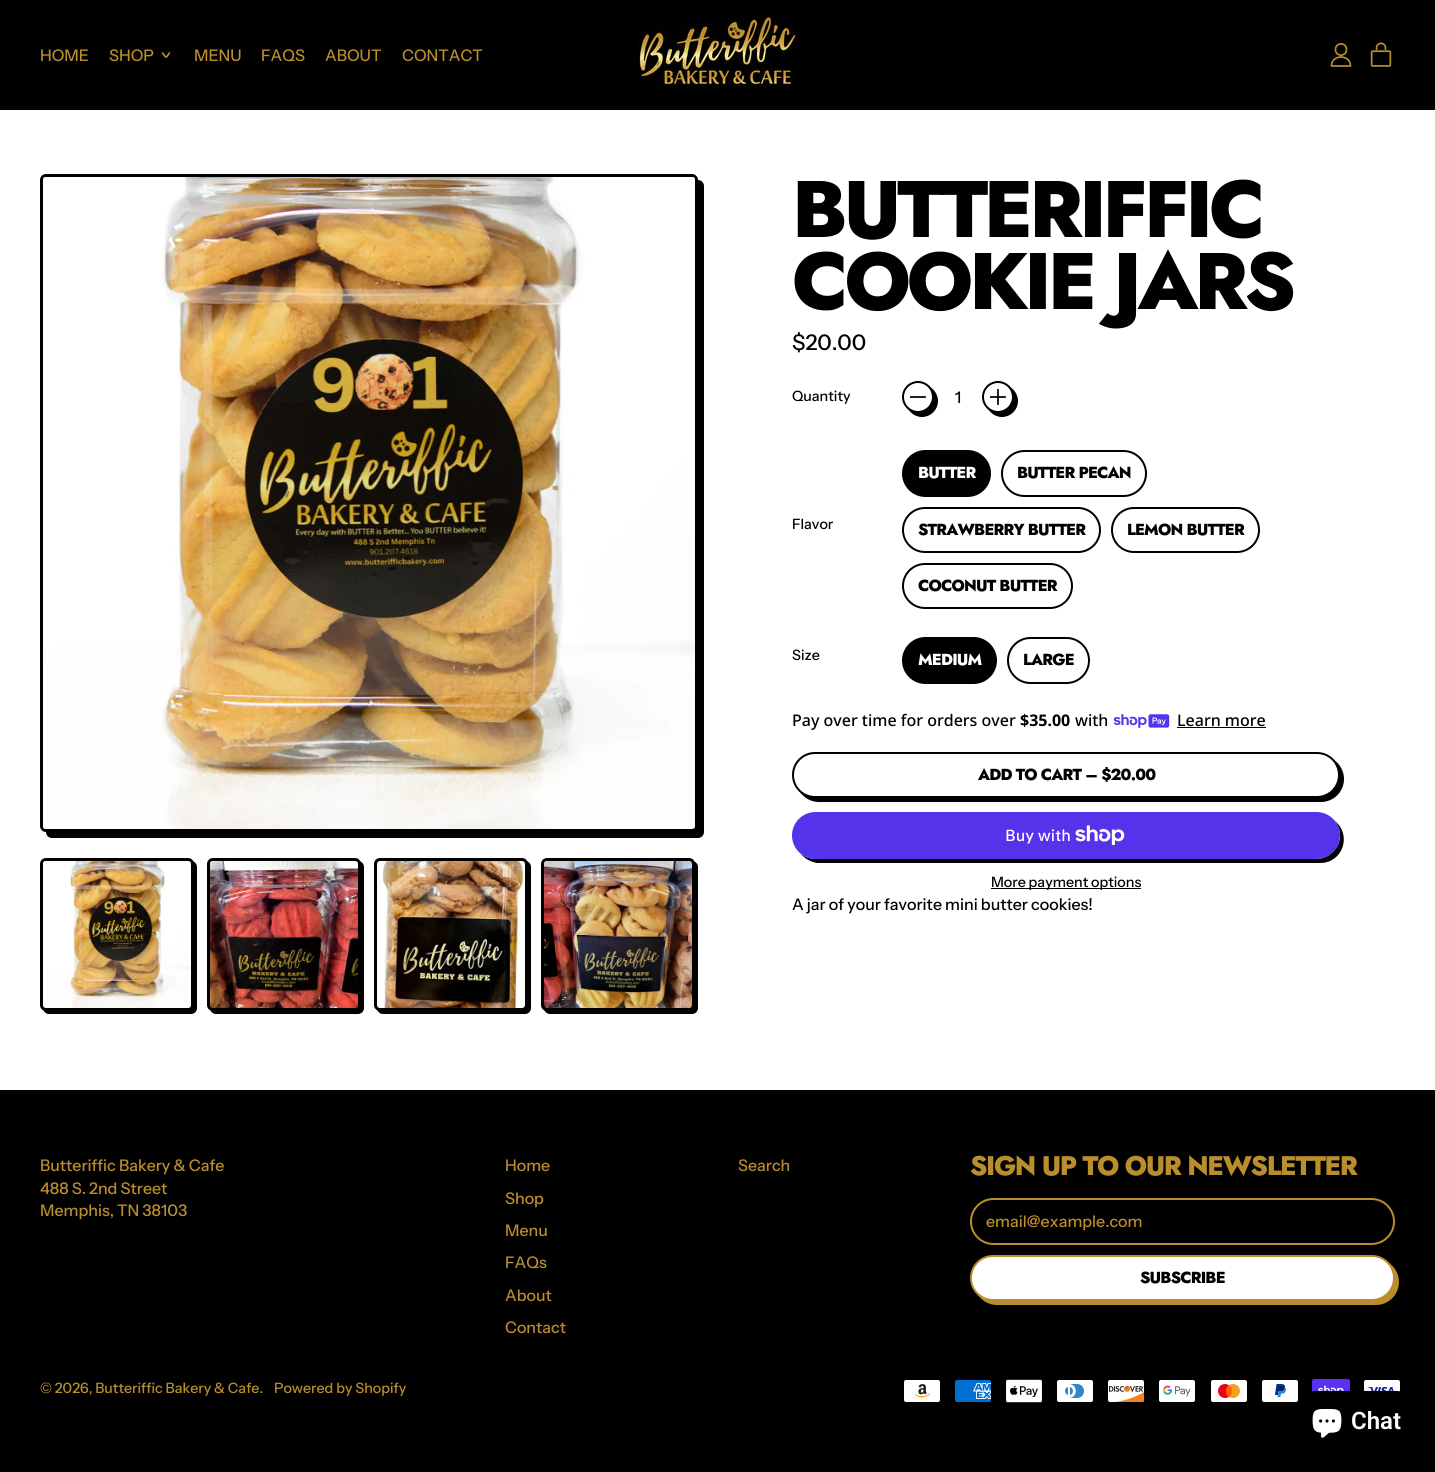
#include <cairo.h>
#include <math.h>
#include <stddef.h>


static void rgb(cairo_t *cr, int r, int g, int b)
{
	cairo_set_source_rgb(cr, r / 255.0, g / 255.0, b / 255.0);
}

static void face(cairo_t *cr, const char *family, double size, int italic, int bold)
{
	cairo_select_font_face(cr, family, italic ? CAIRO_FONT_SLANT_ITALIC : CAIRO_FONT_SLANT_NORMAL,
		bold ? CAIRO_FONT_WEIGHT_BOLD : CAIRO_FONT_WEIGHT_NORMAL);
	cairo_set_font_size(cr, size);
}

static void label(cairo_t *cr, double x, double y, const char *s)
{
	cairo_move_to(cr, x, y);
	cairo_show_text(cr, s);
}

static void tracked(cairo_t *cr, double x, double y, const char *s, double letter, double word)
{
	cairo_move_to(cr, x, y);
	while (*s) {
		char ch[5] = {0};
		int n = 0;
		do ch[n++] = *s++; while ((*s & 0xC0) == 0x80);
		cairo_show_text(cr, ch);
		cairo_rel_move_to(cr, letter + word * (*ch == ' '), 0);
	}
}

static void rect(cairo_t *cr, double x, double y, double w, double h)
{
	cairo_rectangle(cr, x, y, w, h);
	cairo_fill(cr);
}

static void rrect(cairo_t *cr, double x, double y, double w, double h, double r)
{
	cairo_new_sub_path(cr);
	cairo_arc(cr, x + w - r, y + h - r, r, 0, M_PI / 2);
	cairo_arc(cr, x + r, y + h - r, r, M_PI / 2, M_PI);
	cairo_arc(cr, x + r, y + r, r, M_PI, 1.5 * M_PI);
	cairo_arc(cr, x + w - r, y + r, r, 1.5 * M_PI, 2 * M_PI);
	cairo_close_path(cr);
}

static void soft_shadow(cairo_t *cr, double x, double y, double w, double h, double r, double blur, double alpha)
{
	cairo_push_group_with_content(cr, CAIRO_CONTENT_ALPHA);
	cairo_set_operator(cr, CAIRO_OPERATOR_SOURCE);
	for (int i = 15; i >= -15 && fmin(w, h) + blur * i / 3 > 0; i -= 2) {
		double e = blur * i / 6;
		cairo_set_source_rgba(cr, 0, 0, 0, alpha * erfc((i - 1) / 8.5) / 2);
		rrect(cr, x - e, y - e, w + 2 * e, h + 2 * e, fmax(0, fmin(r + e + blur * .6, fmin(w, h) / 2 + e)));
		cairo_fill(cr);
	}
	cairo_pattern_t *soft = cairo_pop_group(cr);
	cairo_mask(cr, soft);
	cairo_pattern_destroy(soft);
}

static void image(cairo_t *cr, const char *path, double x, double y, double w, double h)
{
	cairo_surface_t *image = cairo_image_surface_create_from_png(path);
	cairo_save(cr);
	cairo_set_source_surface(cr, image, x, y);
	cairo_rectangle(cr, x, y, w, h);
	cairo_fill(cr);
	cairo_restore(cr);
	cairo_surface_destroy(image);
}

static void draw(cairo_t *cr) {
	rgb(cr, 255, 255, 255);
	cairo_paint(cr);
	rgb(cr, 0, 0, 0);
	rect(cr, 0, 0, 1435, 110);
	face(cr, "Instrument Sans Medium", 16, 0, 0);
	rgb(cr, 186, 142, 45);
	label(cr, 40, 61, "HOME");
	label(cr, 109, 61, "SHOP");
	cairo_save(cr);
	cairo_rectangle(cr, 162, 51, 8, 8);
	cairo_clip(cr);
	cairo_new_path(cr);
	cairo_move_to(cr, 162.5, 53);
	cairo_curve_to(cr, 167, 58.5, 165, 58.5, 169.5, 53);
	cairo_set_line_width(cr, 1.7);
	cairo_set_line_cap(cr, CAIRO_LINE_CAP_ROUND);
	cairo_set_line_join(cr, CAIRO_LINE_JOIN_ROUND);
	cairo_stroke(cr);
	cairo_restore(cr);
	label(cr, 194, 61, "MENU");
	label(cr, 261, 61, "FAQS");
	label(cr, 325, 61, "ABOUT");
	label(cr, 402, 61, "CONTACT");
	image(cr, "image0.png", 638, 15, 160, 75);
	cairo_new_path(cr);
	cairo_move_to(cr, 1335.5, 49.5);
	cairo_curve_to(cr, 1335.5, 57, 1346.5, 57, 1346.5, 49.5);
	cairo_curve_to(cr, 1346.5, 42, 1335.5, 42, 1335.5, 49.5);
	cairo_close_path(cr);
	cairo_move_to(cr, 1331.5, 66);
	cairo_curve_to(cr, 1331.5, 54, 1350.5, 54, 1350.5, 66);
	cairo_close_path(cr);
	cairo_set_line_width(cr, 1.7);
	cairo_set_line_cap(cr, CAIRO_LINE_CAP_ROUND);
	cairo_set_line_join(cr, CAIRO_LINE_JOIN_ROUND);
	cairo_stroke(cr);
	image(cr, "image1.png", 1370, 42, 22, 25);
	rgb(cr, 0, 0, 0);
	rrect(cr, 47.5, 181.5, 655, 655, 4.5);
	cairo_fill_preserve(cr);
	cairo_set_line_width(cr, 3);
	cairo_set_line_cap(cr, CAIRO_LINE_CAP_BUTT);
	cairo_set_line_join(cr, CAIRO_LINE_JOIN_MITER);
	cairo_stroke(cr);
	rrect(cr, 41.5, 175.5, 655, 655, 4.5);
	cairo_stroke(cr);
	image(cr, "image2.png", 43, 177, 652, 652);
	rrect(cr, 44.5, 862.5, 151, 150, 4.5);
	cairo_fill_preserve(cr);
	cairo_stroke(cr);
	rrect(cr, 41.5, 859.5, 151, 150, 4.5);
	cairo_stroke(cr);
	image(cr, "image3.png", 43, 861, 148, 147);
	rrect(cr, 211.5, 862.5, 151, 150, 4.5);
	cairo_fill_preserve(cr);
	cairo_stroke(cr);
	rrect(cr, 208.5, 859.5, 151, 150, 4.5);
	cairo_stroke(cr);
	image(cr, "image4.png", 210, 861, 148, 147);
	rrect(cr, 378.5, 862.5, 151, 150, 4.5);
	cairo_fill_preserve(cr);
	cairo_stroke(cr);
	rgb(cr, 255, 255, 255);
	rrect(cr, 375.5, 859.5, 151, 150, 4.5);
	cairo_fill_preserve(cr);
	rgb(cr, 0, 0, 0);
	cairo_stroke(cr);
	image(cr, "image5.png", 382, 861, 142, 147);
	rrect(cr, 545.5, 862.5, 151, 150, 4.5);
	cairo_fill_preserve(cr);
	cairo_stroke(cr);
	rrect(cr, 542.5, 859.5, 151, 150, 4.5);
	cairo_stroke(cr);
	image(cr, "image6.png", 544, 861, 148, 147);
	face(cr, "Jost ExtraBold", 80, 0, 0);
	tracked(cr, 792, 237, "BUTTERIFFIC", -4, 0);
	tracked(cr, 792, 309, "COOKIE JARS", -4, 0);
	face(cr, "Instrument Sans Medium", 21.5, 0, 0);
	label(cr, 792, 350, "$20.00");
	face(cr, "Instrument Sans Medium", 14.25, 0, 0);
	label(cr, 792, 401, "Quantity");
	cairo_new_path(cr);
	cairo_arc(cr, 922, 401, 15, 0, 2 * M_PI);
	cairo_fill_preserve(cr);
	cairo_set_line_width(cr, 2);
	cairo_stroke(cr);
	rgb(cr, 255, 255, 255);
	cairo_arc(cr, 918, 397, 15, 0, 2 * M_PI);
	cairo_fill_preserve(cr);
	rgb(cr, 0, 0, 0);
	cairo_stroke(cr);
	cairo_save(cr);
	cairo_rectangle(cr, 910, 389, 16, 16);
	cairo_clip(cr);
	cairo_new_path(cr);
	cairo_move_to(cr, 925.5, 397);
	cairo_line_to(cr, 910.5, 397);
	cairo_set_line_width(cr, 1.7);
	cairo_set_line_cap(cr, CAIRO_LINE_CAP_ROUND);
	cairo_set_line_join(cr, CAIRO_LINE_JOIN_ROUND);
	cairo_stroke(cr);
	cairo_restore(cr);
	face(cr, "Instrument Sans Medium", 16, 0, 0);
	label(cr, 955, 403, "1");
	cairo_new_path(cr);
	cairo_arc(cr, 1002, 401, 15, 0, 2 * M_PI);
	cairo_fill_preserve(cr);
	cairo_stroke(cr);
	rgb(cr, 255, 255, 255);
	cairo_arc(cr, 998, 397, 15, 0, 2 * M_PI);
	cairo_fill_preserve(cr);
	rgb(cr, 0, 0, 0);
	cairo_stroke(cr);
	cairo_save(cr);
	cairo_rectangle(cr, 990, 389, 16, 16);
	cairo_clip(cr);
	cairo_new_path(cr);
	cairo_move_to(cr, 998, 389.5);
	cairo_line_to(cr, 998, 404.5);
	cairo_move_to(cr, 1005.5, 397);
	cairo_line_to(cr, 990.5, 397);
	cairo_set_line_width(cr, 1.7);
	cairo_set_line_cap(cr, CAIRO_LINE_CAP_ROUND);
	cairo_set_line_join(cr, CAIRO_LINE_JOIN_ROUND);
	cairo_stroke(cr);
	cairo_restore(cr);
	face(cr, "Instrument Sans Medium", 14.25, 0, 0);
	label(cr, 792, 529, "Flavor");
	rrect(cr, 903, 451, 87, 45, 22.5);
	cairo_fill_preserve(cr);
	cairo_stroke(cr);
	face(cr, "Jost ExtraBold", 16, 0, 0);
	rgb(cr, 255, 255, 255);
	tracked(cr, 918, 478, "BUTTER", -0.8, 0);
	rrect(cr, 1002, 451, 144, 45, 22.5);
	rgb(cr, 0, 0, 0);
	cairo_stroke(cr);
	tracked(cr, 1017, 478, "BUTTER PECAN", -0.8, 0);
	rrect(cr, 903, 508, 197, 44, 22);
	cairo_stroke(cr);
	tracked(cr, 918, 535, "STRAWBERRY BUTTER", -0.8, 0);
	rrect(cr, 1112, 508, 147, 44, 22);
	cairo_stroke(cr);
	tracked(cr, 1127, 535, "LEMON BUTTER", -0.8, 0);
	rrect(cr, 903, 564, 169, 44, 22);
	cairo_stroke(cr);
	tracked(cr, 918, 591, "COCONUT BUTTER", -0.8, 0);
	face(cr, "Instrument Sans Medium", 14.25, 0, 0);
	label(cr, 792, 660, "Size");
	rrect(cr, 903, 638, 93, 45, 22.5);
	cairo_fill_preserve(cr);
	cairo_stroke(cr);
	face(cr, "Jost ExtraBold", 16, 0, 0);
	rgb(cr, 255, 255, 255);
	tracked(cr, 918, 665, "MEDIUM", -0.8, 0);
	rrect(cr, 1008, 638, 81, 45, 22.5);
	rgb(cr, 0, 0, 0);
	cairo_stroke(cr);
	tracked(cr, 1023, 665, "LARGE", -0.8, 0);
	face(cr, "Noto Sans Medium", 16, 0, 0);
	label(cr, 792, 726, "Pay over time for orders over");
	face(cr, "Noto Sans", 16, 0, 1);
	label(cr, 1020, 726, "$35.00");
	face(cr, "Noto Sans Medium", 16, 0, 0);
	label(cr, 1075, 726, "with");
	image(cr, "image7.png", 1113, 714, 57, 14);
	label(cr, 1177, 726, "Learn more");
	rect(cr, 1177, 727, 89, 1);
	rrect(cr, 797, 757, 546, 44, 22);
	cairo_fill_preserve(cr);
	cairo_stroke(cr);
	rgb(cr, 255, 255, 255);
	rrect(cr, 793, 753, 546, 44, 22);
	cairo_fill_preserve(cr);
	rgb(cr, 0, 0, 0);
	cairo_stroke(cr);
	face(cr, "Jost ExtraBold", 16, 0, 0);
	tracked(cr, 978, 780, "ADD TO CART – $20.00", -0.8, 0);
	cairo_new_path(cr);
	cairo_move_to(cr, 801, 854);
	cairo_curve_to(cr, 805, 859, 811, 862, 817, 863);
	cairo_line_to(cr, 1320, 863);
	cairo_curve_to(cr, 1343, 863, 1352, 835, 1335, 821);
	cairo_curve_to(cr, 1338, 825, 1340, 830, 1340, 836);
	cairo_curve_to(cr, 1340, 848, 1329, 859, 1316, 859);
	cairo_line_to(cr, 816, 859);
	cairo_curve_to(cr, 810, 859, 805, 857, 801, 854);
	cairo_close_path(cr);
	cairo_fill(cr);
	rgb(cr, 84, 51, 235);
	rrect(cr, 792, 812, 548, 47, 23.5);
	cairo_fill(cr);
	face(cr, "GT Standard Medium", 16, 0, 0);
	rgb(cr, 255, 255, 255);
	label(cr, 1005, 841, "Buy with");
	image(cr, "image8.png", 1075, 825, 50, 20);
	rgb(cr, 0, 0, 0);
	rect(cr, 991, 888, 150, 1);
	face(cr, "Instrument Sans Medium", 14.25, 0, 0);
	label(cr, 991, 887, "More payment options");
	face(cr, "Instrument Sans Medium", 16, 0, 0);
	label(cr, 792, 910, "A jar of your favorite mini butter cookies!");
	rect(cr, 0, 1090, 1435, 382);
	rgb(cr, 186, 142, 45);
	label(cr, 40, 1171, "Butteriffic Bakery & Cafe");
	label(cr, 40, 1194, "488 S. 2nd Street");
	label(cr, 40, 1216, "Memphis, TN 38103");
	label(cr, 505, 1171, "Home");
	label(cr, 505, 1204, "Shop");
	label(cr, 505, 1236, "Menu");
	label(cr, 505, 1268, "FAQs");
	label(cr, 505, 1301, "About");
	label(cr, 505, 1333, "Contact");
	label(cr, 738, 1171, "Search");
	face(cr, "Jost ExtraBold", 26.9, 0, 0);
	tracked(cr, 970, 1175, "SIGN UP TO OUR NEWSLETTER", -1.35, 0);
	rrect(cr, 971, 1199, 423, 45, 22.5);
	cairo_stroke(cr);
	face(cr, "Instrument Sans Medium", 16, 0, 0);
	label(cr, 986, 1227, "email@example.com");
	rrect(cr, 975, 1260, 423, 44, 22);
	cairo_fill_preserve(cr);
	cairo_stroke(cr);
	rgb(cr, 255, 255, 255);
	rrect(cr, 971, 1256, 423, 44, 22);
	cairo_fill_preserve(cr);
	rgb(cr, 186, 142, 45);
	cairo_stroke(cr);
	face(cr, "Jost ExtraBold", 16, 0, 0);
	rgb(cr, 0, 0, 0);
	tracked(cr, 1140, 1283, "SUBSCRIBE", -0.8, 0);
	face(cr, "Instrument Sans Medium", 14.25, 0, 0);
	rgb(cr, 186, 142, 45);
	label(cr, 40, 1393, "© 2026, Butteriffic Bakery & Cafe.");
	label(cr, 274, 1393, "Powered by Shopify");
	image(cr, "image9.png", 904, 1380, 36, 22);
	image(cr, "image10.png", 955, 1380, 36, 22);
	image(cr, "image11.png", 1006, 1379, 36, 24);
	image(cr, "image12.png", 1057, 1380, 36, 22);
	image(cr, "image13.png", 1108, 1380, 37, 22);
	image(cr, "image14.png", 1159, 1380, 36, 22);
	image(cr, "image15.png", 1211, 1380, 36, 22);
	image(cr, "image16.png", 1262, 1380, 36, 22);
	image(cr, "image17.png", 1312, 1379, 38, 13);
	image(cr, "image18.png", 1364, 1380, 36, 12);
	rgb(cr, 0, 0, 0);
	soft_shadow(cr, 1300, 1391, 113, 60, 16, 2.5, 0.15);
	rgb(cr, 0, 0, 0);
	rrect(cr, 1300, 1391, 113, 60, 16);
	cairo_fill(cr);
	image(cr, "image19.png", 1312, 1409, 30, 29);
	face(cr, "Roboto SemiBold", 24, 0, 0);
	rgb(cr, 255, 255, 255);
	label(cr, 1351, 1429, "Chat");
}

int main(void) {
	cairo_surface_t *surface = cairo_image_surface_create(CAIRO_FORMAT_RGB24, 1435, 1472);
	cairo_t *cr = cairo_create(surface);
	cairo_font_options_t *options = cairo_font_options_create();
	cairo_font_options_set_hint_metrics(options, CAIRO_HINT_METRICS_OFF);
	cairo_font_options_set_hint_style(options, CAIRO_HINT_STYLE_NONE);
	cairo_set_font_options(cr, options);
	cairo_set_miter_limit(cr, 4);
	draw(cr);
	cairo_surface_write_to_png(surface, "render.png");
	cairo_font_options_destroy(options);
	cairo_destroy(cr);
	cairo_surface_destroy(surface);
	return 0;
}
